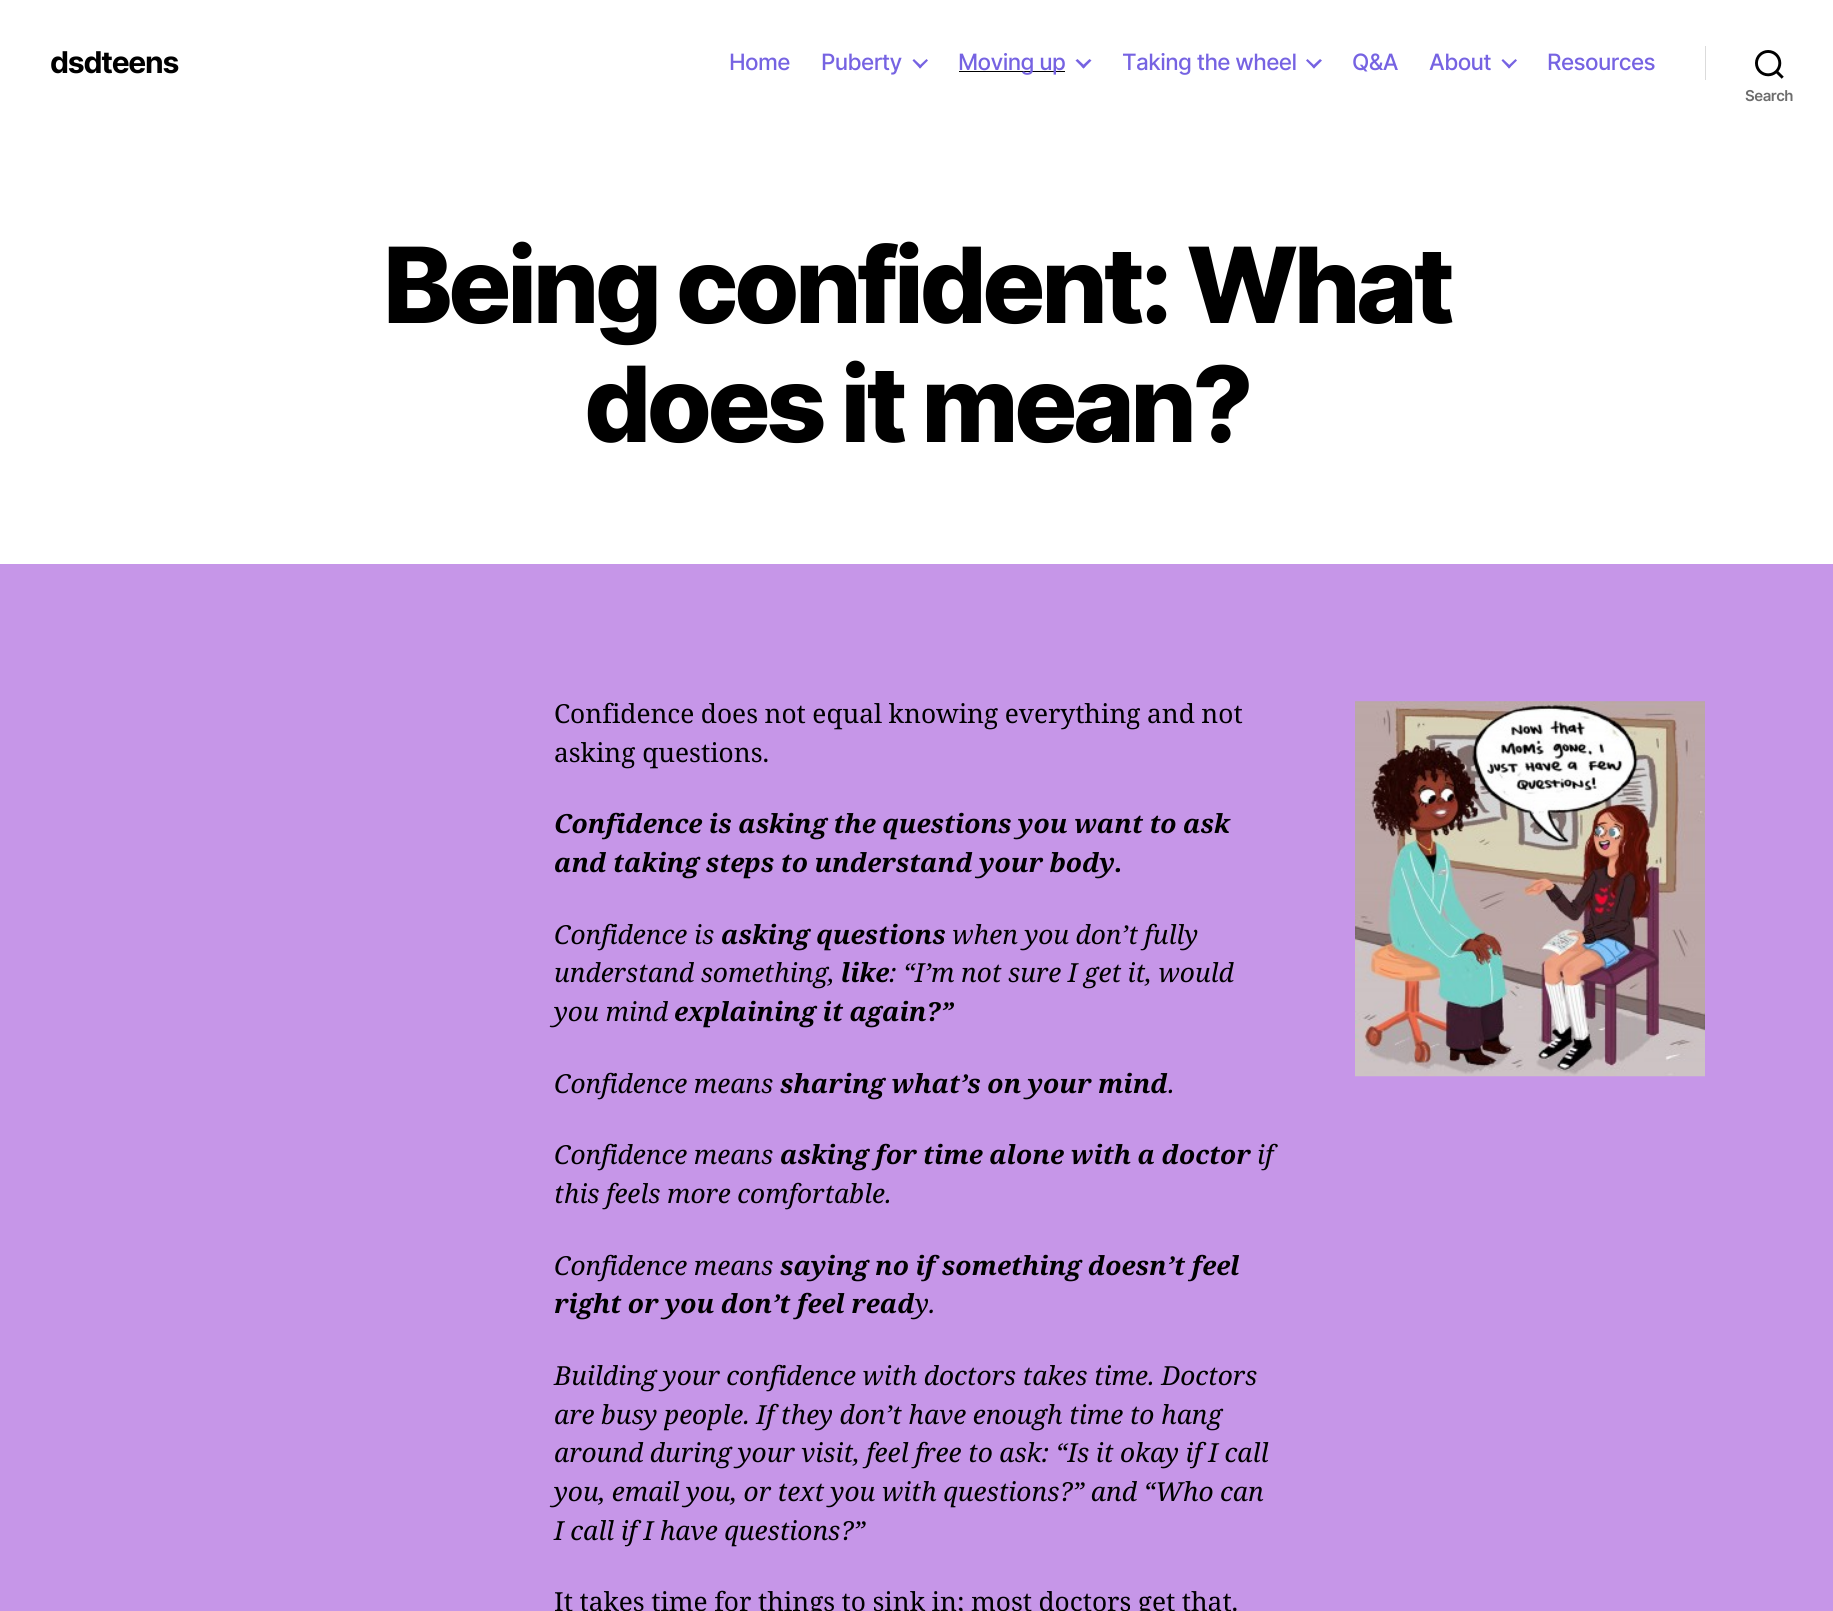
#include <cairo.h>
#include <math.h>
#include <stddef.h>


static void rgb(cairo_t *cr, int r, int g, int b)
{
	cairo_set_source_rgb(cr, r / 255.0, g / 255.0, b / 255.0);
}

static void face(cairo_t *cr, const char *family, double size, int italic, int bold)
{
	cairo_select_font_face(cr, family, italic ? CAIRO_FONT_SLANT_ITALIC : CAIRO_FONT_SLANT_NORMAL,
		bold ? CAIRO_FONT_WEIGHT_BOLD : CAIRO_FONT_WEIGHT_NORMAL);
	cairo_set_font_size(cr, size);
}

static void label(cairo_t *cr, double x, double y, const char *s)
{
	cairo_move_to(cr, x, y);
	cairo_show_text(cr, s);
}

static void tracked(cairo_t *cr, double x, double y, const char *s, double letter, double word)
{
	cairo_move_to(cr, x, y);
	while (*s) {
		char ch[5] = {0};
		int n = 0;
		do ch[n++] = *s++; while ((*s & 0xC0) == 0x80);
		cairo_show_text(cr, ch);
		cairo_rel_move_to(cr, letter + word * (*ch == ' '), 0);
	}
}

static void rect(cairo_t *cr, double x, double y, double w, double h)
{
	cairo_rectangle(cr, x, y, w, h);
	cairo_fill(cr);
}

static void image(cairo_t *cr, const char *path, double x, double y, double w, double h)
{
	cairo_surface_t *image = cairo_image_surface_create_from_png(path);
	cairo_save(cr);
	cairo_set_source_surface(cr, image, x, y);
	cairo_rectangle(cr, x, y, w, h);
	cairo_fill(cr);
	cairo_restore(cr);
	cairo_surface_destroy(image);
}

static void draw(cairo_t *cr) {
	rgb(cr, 198, 150, 232);
	cairo_paint(cr);
	rgb(cr, 255, 255, 255);
	rect(cr, 0, 0, 1833, 564);
	face(cr, "Inter", 30, 0, 1);
	rgb(cr, 0, 0, 0);
	tracked(cr, 50, 73, "dsdteens", -1.25, 0);
	face(cr, "Inter Medium", 22.5, 0, 0);
	rgb(cr, 118, 99, 226);
	tracked(cr, 729, 70, "Home", -0.6, 0);
	tracked(cr, 821, 70, "Puberty", -0.6, 0);
	cairo_new_path(cr);
	cairo_move_to(cr, 912.5, 60.5);
	cairo_line_to(cr, 914, 59);
	cairo_line_to(cr, 922, 66.5);
	cairo_line_to(cr, 920, 68.5);
	cairo_close_path(cr);
	cairo_fill(cr);
	cairo_new_path(cr);
	cairo_move_to(cr, 918.5, 66.5);
	cairo_line_to(cr, 926.5, 59);
	cairo_line_to(cr, 928, 60.5);
	cairo_line_to(cr, 920, 68.5);
	cairo_close_path(cr);
	cairo_fill(cr);
	rgb(cr, 0, 0, 0);
	rect(cr, 959, 71, 106, 1);
	rgb(cr, 118, 99, 226);
	tracked(cr, 958, 70, "Moving up", -0.6, 0);
	cairo_new_path(cr);
	cairo_move_to(cr, 1075.5, 60.5);
	cairo_line_to(cr, 1077.5, 59);
	cairo_line_to(cr, 1085.5, 66.5);
	cairo_line_to(cr, 1083.5, 68.5);
	cairo_close_path(cr);
	cairo_fill(cr);
	cairo_new_path(cr);
	cairo_move_to(cr, 1081.5, 66.5);
	cairo_line_to(cr, 1089.5, 59);
	cairo_line_to(cr, 1091.5, 60.5);
	cairo_line_to(cr, 1083.5, 68.5);
	cairo_close_path(cr);
	cairo_fill(cr);
	tracked(cr, 1122, 70, "Taking the wheel", -0.6, 0);
	cairo_new_path(cr);
	cairo_move_to(cr, 1306, 60.5);
	cairo_line_to(cr, 1307.5, 59);
	cairo_line_to(cr, 1315.5, 66.5);
	cairo_line_to(cr, 1314, 68.5);
	cairo_close_path(cr);
	cairo_fill(cr);
	cairo_new_path(cr);
	cairo_move_to(cr, 1312, 66.5);
	cairo_line_to(cr, 1320, 59);
	cairo_line_to(cr, 1322, 60.5);
	cairo_line_to(cr, 1314, 68.5);
	cairo_close_path(cr);
	cairo_fill(cr);
	tracked(cr, 1352, 70, "Q&A", -0.6, 0);
	tracked(cr, 1429, 70, "About", -0.6, 0);
	cairo_new_path(cr);
	cairo_move_to(cr, 1501.5, 60.5);
	cairo_line_to(cr, 1503, 59);
	cairo_line_to(cr, 1511, 66.5);
	cairo_line_to(cr, 1509, 68.5);
	cairo_close_path(cr);
	cairo_fill(cr);
	cairo_new_path(cr);
	cairo_move_to(cr, 1507.5, 66.5);
	cairo_line_to(cr, 1515.5, 59);
	cairo_line_to(cr, 1517, 60.5);
	cairo_line_to(cr, 1509, 68.5);
	cairo_close_path(cr);
	cairo_fill(cr);
	tracked(cr, 1547, 70, "Resources", -0.6, 0);
	rgb(cr, 219, 219, 219);
	rect(cr, 1705, 46, 1, 34);
	image(cr, "image0.png", 1755, 50, 29, 29);
	face(cr, "Inter SemiBold", 15, 0, 0);
	rgb(cr, 109, 109, 109);
	tracked(cr, 1745, 101, "Search", -0.5, 0);
	face(cr, "Inter ExtraBold", 105, 0, 0);
	rgb(cr, 0, 0, 0);
	tracked(cr, 383, 323, "Being confident: What", -4.4, 0);
	tracked(cr, 584, 442, "does it mean?", -4.4, 0);
	face(cr, "Noto Serif", 26.25, 0, 0);
	tracked(cr, 554, 723, "Confidence does not equal knowing everything and not", 0, -0.3);
	label(cr, 554, 762, "asking questions.");
	image(cr, "image1.png", 1355, 701, 350, 376);
	face(cr, "Noto Serif", 26.25, 1, 1);
	tracked(cr, 554, 833, "Confidence is asking the questions you want to ask", 0, -0.3);
	tracked(cr, 554, 872, "and taking steps to understand your body.", 0, -0.3);
	face(cr, "Noto Serif", 26.25, 1, 0);
	label(cr, 554, 944, "Confidence is");
	face(cr, "Noto Serif", 26.25, 1, 1);
	tracked(cr, 721, 944, "asking questions", 0, -0.3);
	face(cr, "Noto Serif", 26.25, 1, 0);
	tracked(cr, 952, 944, "when you don’t fully", 0, -0.3);
	label(cr, 554, 982, "understand something,");
	face(cr, "Noto Serif", 26.25, 1, 1);
	label(cr, 841, 982, "like");
	face(cr, "Noto Serif", 26.25, 1, 0);
	tracked(cr, 889, 982, ": “I’m not sure I get it, would", 0, -0.3);
	label(cr, 554, 1021, "you mind");
	face(cr, "Noto Serif", 26.25, 1, 1);
	tracked(cr, 674, 1021, "explaining it again?”", 0, -0.3);
	face(cr, "Noto Serif", 26.25, 1, 0);
	tracked(cr, 554, 1093, "Confidence means", 0, -0.3);
	face(cr, "Noto Serif", 26.25, 1, 1);
	tracked(cr, 780, 1093, "sharing what’s on your mind", 0, -0.3);
	face(cr, "Noto Serif", 26.25, 1, 0);
	label(cr, 1168, 1093, ".");
	tracked(cr, 554, 1164, "Confidence means", 0, -0.3);
	face(cr, "Noto Serif", 26.25, 1, 1);
	tracked(cr, 780, 1164, "asking for time alone with a doctor", 0, -0.3);
	face(cr, "Noto Serif", 26.25, 1, 0);
	label(cr, 1257, 1164, "if");
	tracked(cr, 554, 1203, "this feels more comfortable.", 0, -0.3);
	tracked(cr, 554, 1275, "Confidence means", 0, -0.3);
	face(cr, "Noto Serif", 26.25, 1, 1);
	tracked(cr, 780, 1275, "saying no if something doesn’t feel", 0, -0.3);
	tracked(cr, 554, 1313, "right or you don’t feel read", 0, -0.3);
	face(cr, "Noto Serif", 26.25, 1, 0);
	label(cr, 915, 1313, "y.");
	tracked(cr, 554, 1385, "Building your confidence with doctors takes time. Doctors", 0, -0.3);
	tracked(cr, 554, 1424, "are busy people. If they don’t have enough time to hang", 0, -0.3);
	tracked(cr, 554, 1462, "around during your visit, feel free to ask: “Is it okay if I call", 0, -0.3);
	tracked(cr, 554, 1501, "you, email you, or text you with questions?” and “Who can", 0, -0.3);
	tracked(cr, 554, 1540, "I call if I have questions?”", 0, -0.3);
	face(cr, "Noto Serif", 26.25, 0, 0);
	tracked(cr, 554, 1611, "It takes time for things to sink in; most doctors get that.", 0, -0.3);
}

int main(void) {
	cairo_surface_t *surface = cairo_image_surface_create(CAIRO_FORMAT_RGB24, 1833, 1611);
	cairo_t *cr = cairo_create(surface);
	cairo_font_options_t *options = cairo_font_options_create();
	cairo_font_options_set_hint_metrics(options, CAIRO_HINT_METRICS_OFF);
	cairo_font_options_set_hint_style(options, CAIRO_HINT_STYLE_NONE);
	cairo_set_font_options(cr, options);
	cairo_set_miter_limit(cr, 4);
	draw(cr);
	cairo_surface_write_to_png(surface, "render.png");
	cairo_font_options_destroy(options);
	cairo_destroy(cr);
	cairo_surface_destroy(surface);
	return 0;
}
